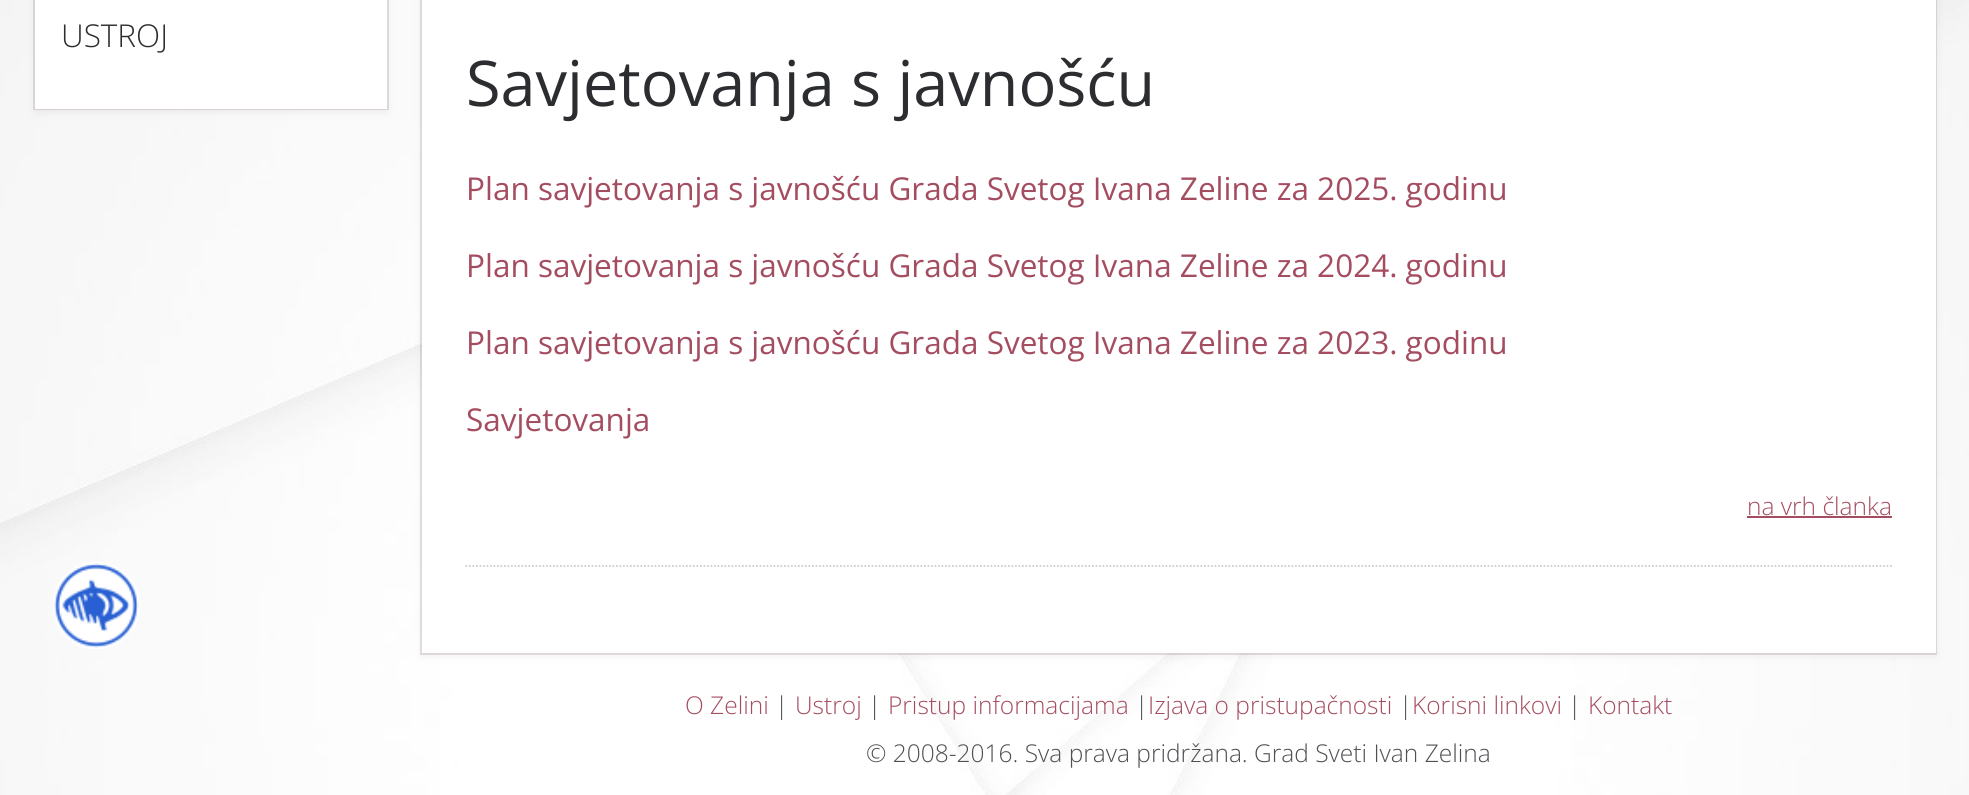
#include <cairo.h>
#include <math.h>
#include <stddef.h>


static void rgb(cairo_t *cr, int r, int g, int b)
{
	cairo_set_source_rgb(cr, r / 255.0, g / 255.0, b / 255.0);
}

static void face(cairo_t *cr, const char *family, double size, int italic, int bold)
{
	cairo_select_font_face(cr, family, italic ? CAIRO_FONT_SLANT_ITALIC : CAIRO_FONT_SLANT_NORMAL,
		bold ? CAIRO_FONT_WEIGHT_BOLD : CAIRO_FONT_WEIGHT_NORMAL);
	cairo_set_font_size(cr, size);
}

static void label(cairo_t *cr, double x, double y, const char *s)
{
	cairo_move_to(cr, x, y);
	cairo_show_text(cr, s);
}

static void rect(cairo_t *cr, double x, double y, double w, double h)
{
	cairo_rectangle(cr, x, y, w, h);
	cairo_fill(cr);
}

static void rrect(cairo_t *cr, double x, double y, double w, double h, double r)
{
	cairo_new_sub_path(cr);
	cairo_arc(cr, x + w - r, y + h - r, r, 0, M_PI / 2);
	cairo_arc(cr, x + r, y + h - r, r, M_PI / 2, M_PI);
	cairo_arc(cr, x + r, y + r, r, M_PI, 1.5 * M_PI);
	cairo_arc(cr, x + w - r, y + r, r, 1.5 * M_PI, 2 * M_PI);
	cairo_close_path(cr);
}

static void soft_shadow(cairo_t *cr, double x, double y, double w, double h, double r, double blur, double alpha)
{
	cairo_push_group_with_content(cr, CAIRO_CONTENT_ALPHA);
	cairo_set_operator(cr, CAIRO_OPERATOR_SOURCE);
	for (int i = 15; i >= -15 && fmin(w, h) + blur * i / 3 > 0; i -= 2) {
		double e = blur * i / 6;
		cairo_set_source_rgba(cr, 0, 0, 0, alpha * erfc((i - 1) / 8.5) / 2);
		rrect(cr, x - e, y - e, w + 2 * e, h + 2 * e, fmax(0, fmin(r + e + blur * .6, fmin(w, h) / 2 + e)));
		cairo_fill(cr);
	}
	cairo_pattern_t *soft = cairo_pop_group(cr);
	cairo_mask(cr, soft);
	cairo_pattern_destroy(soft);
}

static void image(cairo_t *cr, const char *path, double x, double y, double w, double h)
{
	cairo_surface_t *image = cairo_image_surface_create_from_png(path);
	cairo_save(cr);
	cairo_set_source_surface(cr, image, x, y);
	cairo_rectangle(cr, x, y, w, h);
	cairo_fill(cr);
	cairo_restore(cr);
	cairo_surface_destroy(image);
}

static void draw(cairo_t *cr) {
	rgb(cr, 255, 255, 255);
	cairo_paint(cr);
	image(cr, "image0.png", 0, 0, 1969, 795);
	rgb(cr, 98, 68, 73);
	soft_shadow(cr, 35, -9, 352, 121, 0, 4.5, 0.09);
	cairo_rectangle(cr, 34, -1, 354, 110);
	cairo_set_source_rgba(cr, 0.384, 0.267, 0.286, 0.16);
	cairo_stroke(cr);
	rgb(cr, 255, 255, 255);
	rect(cr, 35, 0, 352, 109);
	face(cr, "Open Sans Light", 31.5, 0, 0);
	rgb(cr, 44, 45, 48);
	label(cr, 61, 47, "USTROJ");
	rgb(cr, 98, 68, 73);
	soft_shadow(cr, 422, -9, 1514, 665, 0, 4.5, 0.09);
	cairo_rectangle(cr, 421, -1, 1515, 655);
	cairo_set_source_rgba(cr, 0.384, 0.267, 0.286, 0.16);
	cairo_stroke(cr);
	rgb(cr, 255, 255, 255);
	rect(cr, 422, 0, 1514, 653);
	cairo_new_path(cr);
	cairo_move_to(cr, 465.5, 566);
	cairo_line_to(cr, 1892, 566);
	rgb(cr, 204, 204, 204);
	cairo_set_line_width(cr, 1.8);
	cairo_set_dash(cr, (double[]){1.75, 1.75}, 2, 0);
	cairo_stroke(cr);
	face(cr, "Open Sans", 63, 0, 0);
	rgb(cr, 44, 45, 48);
	label(cr, 466, 106, "Savjetovanja s javnošću");
	face(cr, "Open Sans", 31.5, 0, 0);
	rgb(cr, 165, 77, 96);
	label(cr, 466, 200, "Plan savjetovanja s javnošću Grada Svetog Ivana Zeline za 2025. godinu");
	label(cr, 466, 277, "Plan savjetovanja s javnošću Grada Svetog Ivana Zeline za 2024. godinu");
	label(cr, 466, 354, "Plan savjetovanja s javnošću Grada Svetog Ivana Zeline za 2023. godinu");
	label(cr, 466, 431, "Savjetovanja");
	face(cr, "Open Sans Light", 24.5, 0, 0);
	label(cr, 1747, 515, "na vrh članka");
	rect(cr, 1747, 516, 145, 2);
	label(cr, 685, 714, "O Zelini");
	rgb(cr, 79, 80, 84);
	label(cr, 775, 714, "|");
	rgb(cr, 165, 77, 96);
	label(cr, 795, 714, "Ustroj");
	rgb(cr, 79, 80, 84);
	label(cr, 868, 714, "|");
	rgb(cr, 165, 77, 96);
	label(cr, 888, 714, "Pristup informacijama");
	rgb(cr, 79, 80, 84);
	label(cr, 1135, 714, "|");
	rgb(cr, 165, 77, 96);
	label(cr, 1148, 714, "Izjava o pristupačnosti");
	rgb(cr, 79, 80, 84);
	label(cr, 1399, 714, "|");
	rgb(cr, 165, 77, 96);
	label(cr, 1412, 714, "Korisni linkovi");
	rgb(cr, 79, 80, 84);
	label(cr, 1568, 714, "|");
	rgb(cr, 165, 77, 96);
	label(cr, 1588, 714, "Kontakt");
	rgb(cr, 79, 80, 84);
	label(cr, 866, 762, "© 2008-2016. Sva prava pridržana. Grad Sveti Ivan Zelina");
	image(cr, "image1.png", 53, 562, 87, 87);
}

int main(void) {
	cairo_surface_t *surface = cairo_image_surface_create(CAIRO_FORMAT_RGB24, 1969, 795);
	cairo_t *cr = cairo_create(surface);
	cairo_font_options_t *options = cairo_font_options_create();
	cairo_font_options_set_hint_metrics(options, CAIRO_HINT_METRICS_OFF);
	cairo_font_options_set_hint_style(options, CAIRO_HINT_STYLE_NONE);
	cairo_set_font_options(cr, options);
	cairo_set_miter_limit(cr, 4);
	draw(cr);
	cairo_surface_write_to_png(surface, "render.png");
	cairo_font_options_destroy(options);
	cairo_destroy(cr);
	cairo_surface_destroy(surface);
	return 0;
}
